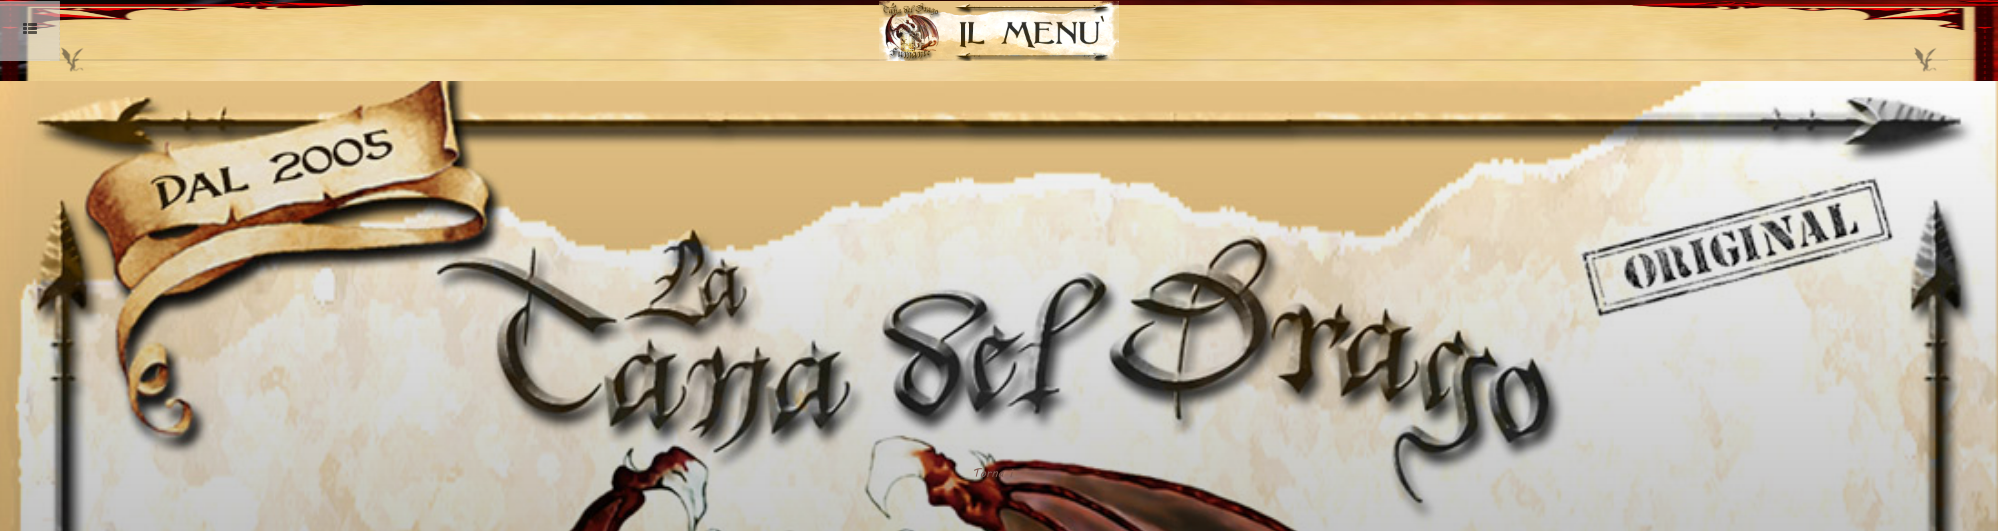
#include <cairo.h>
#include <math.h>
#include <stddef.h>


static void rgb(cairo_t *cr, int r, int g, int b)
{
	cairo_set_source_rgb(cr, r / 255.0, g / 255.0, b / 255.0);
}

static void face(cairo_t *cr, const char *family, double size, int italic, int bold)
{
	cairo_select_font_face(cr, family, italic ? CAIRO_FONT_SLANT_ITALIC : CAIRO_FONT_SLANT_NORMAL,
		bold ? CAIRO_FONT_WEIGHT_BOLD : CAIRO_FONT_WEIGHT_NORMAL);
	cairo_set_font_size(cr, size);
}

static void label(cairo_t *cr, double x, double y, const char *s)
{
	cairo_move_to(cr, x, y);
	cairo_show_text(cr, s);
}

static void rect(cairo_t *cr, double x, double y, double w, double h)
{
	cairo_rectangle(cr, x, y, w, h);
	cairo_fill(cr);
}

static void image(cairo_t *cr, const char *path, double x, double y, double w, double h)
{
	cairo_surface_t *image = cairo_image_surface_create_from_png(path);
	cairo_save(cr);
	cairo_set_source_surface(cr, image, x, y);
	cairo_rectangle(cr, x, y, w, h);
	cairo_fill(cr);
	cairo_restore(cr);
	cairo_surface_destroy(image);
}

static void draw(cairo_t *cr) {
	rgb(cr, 255, 255, 255);
	cairo_paint(cr);
	image(cr, "image2.png", 0, 0, 1998, 81);
	cairo_set_source_rgba(cr, 0, 0, 0, 0.1);
	rect(cr, 0, 0, 1998, 1);
	rect(cr, 50, 60, 1898, 1);
	image(cr, "image3.png", 61, 47, 23, 25);
	image(cr, "image4.png", 1914, 47, 23, 25);
	rect(cr, 0, 59, 1998, 1);
	cairo_set_source_rgba(cr, 0.851, 0.851, 0.851, 0.6);
	rect(cr, 0, 1, 60, 60);
	cairo_new_path(cr);
	cairo_move_to(cr, 59.5, 1);
	cairo_line_to(cr, 59.5, 61);
	cairo_set_source_rgba(cr, 0, 0, 0, 0.06);
	cairo_set_line_width(cr, 1);
	cairo_set_dash(cr, (double[]){3, 2.18}, 2, 0);
	cairo_stroke(cr);
	image(cr, "image0.png", 23, 23, 14, 11);
	image(cr, "image1.png", 879, 1, 240, 60);
	image(cr, "image5.png", 0, 81, 1998, 450);
	face(cr, "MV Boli", 12, 0, 0);
	rgb(cr, 127, 89, 81);
	label(cr, 972, 477, "Torna i");
}

int main(void) {
	cairo_surface_t *surface = cairo_image_surface_create(CAIRO_FORMAT_RGB24, 1998, 531);
	cairo_t *cr = cairo_create(surface);
	cairo_font_options_t *options = cairo_font_options_create();
	cairo_font_options_set_hint_metrics(options, CAIRO_HINT_METRICS_OFF);
	cairo_font_options_set_hint_style(options, CAIRO_HINT_STYLE_NONE);
	cairo_set_font_options(cr, options);
	cairo_set_miter_limit(cr, 4);
	draw(cr);
	cairo_surface_write_to_png(surface, "render.png");
	cairo_font_options_destroy(options);
	cairo_destroy(cr);
	cairo_surface_destroy(surface);
	return 0;
}
